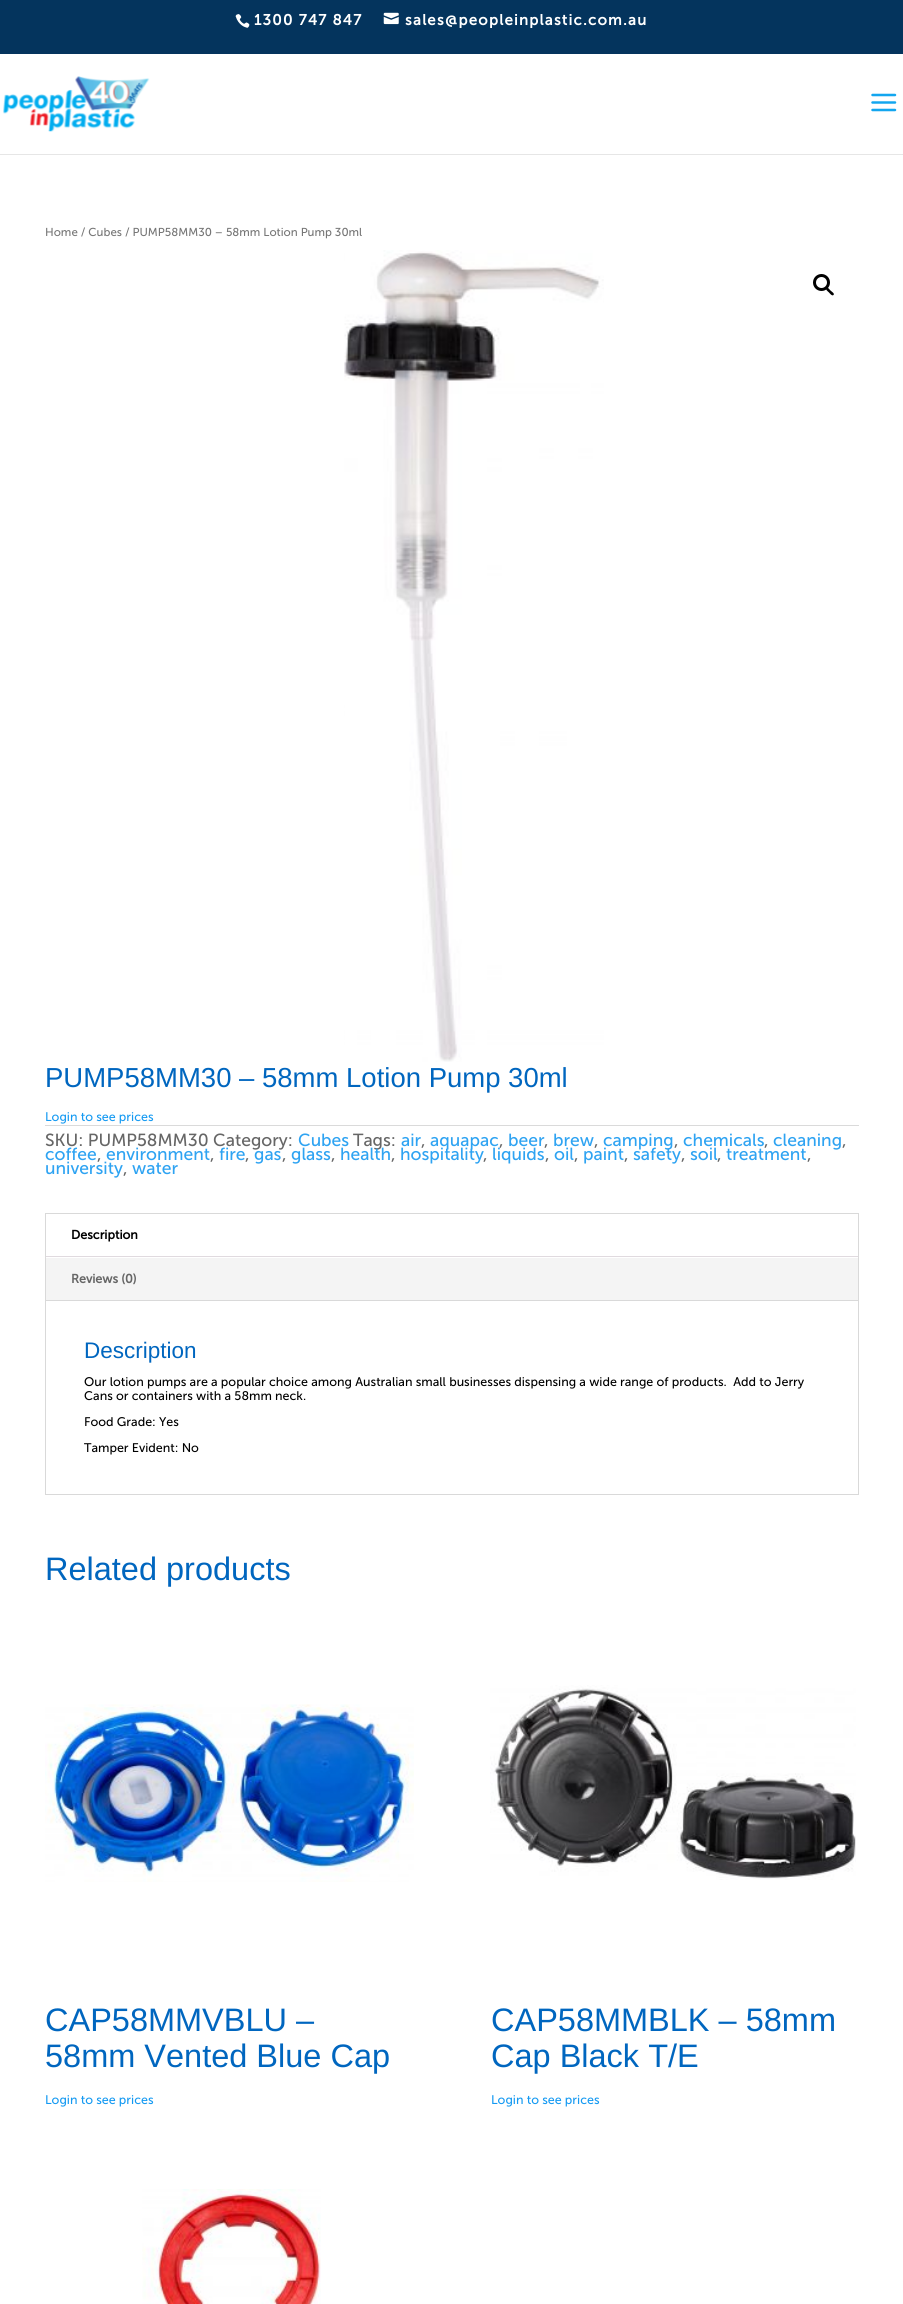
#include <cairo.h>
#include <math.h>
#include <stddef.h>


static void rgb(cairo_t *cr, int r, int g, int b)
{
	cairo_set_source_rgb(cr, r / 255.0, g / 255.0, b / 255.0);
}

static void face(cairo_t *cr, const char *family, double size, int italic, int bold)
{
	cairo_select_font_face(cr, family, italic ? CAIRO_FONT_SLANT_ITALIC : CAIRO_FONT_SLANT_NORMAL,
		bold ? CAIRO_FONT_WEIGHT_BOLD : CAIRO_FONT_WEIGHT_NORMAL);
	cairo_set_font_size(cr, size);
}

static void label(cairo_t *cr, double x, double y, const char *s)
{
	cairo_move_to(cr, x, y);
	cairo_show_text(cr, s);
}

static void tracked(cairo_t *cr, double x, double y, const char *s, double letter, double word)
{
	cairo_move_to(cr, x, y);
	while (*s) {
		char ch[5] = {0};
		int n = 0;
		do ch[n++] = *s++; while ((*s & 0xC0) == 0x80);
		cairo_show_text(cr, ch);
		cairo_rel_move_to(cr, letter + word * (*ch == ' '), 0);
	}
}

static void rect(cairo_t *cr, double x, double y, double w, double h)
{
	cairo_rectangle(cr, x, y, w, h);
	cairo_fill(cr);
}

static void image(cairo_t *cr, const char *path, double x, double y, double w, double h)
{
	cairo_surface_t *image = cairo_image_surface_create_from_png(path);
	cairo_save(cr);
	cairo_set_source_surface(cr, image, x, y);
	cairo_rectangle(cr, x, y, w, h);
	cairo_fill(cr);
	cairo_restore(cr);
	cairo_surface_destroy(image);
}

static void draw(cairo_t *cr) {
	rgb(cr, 255, 255, 255);
	cairo_paint(cr);
	rgb(cr, 4, 52, 93);
	rect(cr, 0, 0, 903, 54);
	image(cr, "image0.png", 235, 14, 15, 14);
	face(cr, "Museo Sans", 15, 0, 1);
	rgb(cr, 255, 255, 255);
	tracked(cr, 254, 25, "1300 747 847", 1.25, 0);
	image(cr, "image1.png", 383, 12, 16, 13);
	tracked(cr, 405, 25, "sales@peopleinplastic.com.au", 1.25, 0);
	rgb(cr, 230, 230, 230);
	cairo_new_path(cr);
	cairo_move_to(cr, 0, 154);
	cairo_line_to(cr, 0, 155);
	cairo_line_to(cr, 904, 155);
	cairo_line_to(cr, 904, 55);
	cairo_line_to(cr, 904, 154);
	cairo_close_path(cr);
	cairo_fill(cr);
	image(cr, "image2.png", 3, 76, 147, 56);
	image(cr, "image3.png", 871, 93, 26, 19);
	face(cr, "Museo Sans", 11.5, 0, 0);
	rgb(cr, 118, 118, 118);
	label(cr, 45, 236, "Home / Cubes / PUMP58MM30 – 58mm Lotion Pump 30ml");
	image(cr, "image4.png", 344, 250, 260, 812);
	cairo_arc(cr, 821.5, 282.5, 7, 0, 2 * M_PI);
	rgb(cr, 0, 0, 0);
	cairo_set_line_width(cr, 3);
	cairo_stroke(cr);
	cairo_new_path(cr);
	cairo_move_to(cr, 826.5, 288);
	cairo_curve_to(cr, 827.5, 286.5, 830, 290, 830.5, 290.5);
	cairo_curve_to(cr, 831.5, 291.5, 835, 293.5, 833.5, 295);
	cairo_curve_to(cr, 832, 296.5, 829.5, 293, 829, 292.5);
	cairo_curve_to(cr, 828, 291.5, 825, 289.5, 826.5, 288);
	cairo_close_path(cr);
	cairo_fill(cr);
	face(cr, "Liberation Sans", 27.5, 0, 0);
	rgb(cr, 0, 102, 191);
	label(cr, 45, 1087, "PUMP58MM30 – 58mm Lotion Pump 30ml");
	face(cr, "Museo Sans", 12.5, 0, 0);
	rgb(cr, 21, 154, 242);
	label(cr, 45, 1121, "Login to see prices");
	rgb(cr, 218, 218, 218);
	rect(cr, 45, 1125, 814, 1);
	face(cr, "Museo Sans", 17.5, 0, 0);
	rgb(cr, 102, 102, 102);
	label(cr, 45, 1146, "SKU: PUMP58MM30 Category:");
	rgb(cr, 46, 163, 242);
	label(cr, 298, 1146, "Cubes");
	rgb(cr, 102, 102, 102);
	label(cr, 353, 1146, "Tags:");
	rgb(cr, 46, 163, 242);
	label(cr, 401, 1146, "air");
	rgb(cr, 102, 102, 102);
	label(cr, 421, 1146, ",");
	rgb(cr, 46, 163, 242);
	label(cr, 430, 1146, "aquapac");
	rgb(cr, 102, 102, 102);
	label(cr, 499, 1146, ",");
	rgb(cr, 46, 163, 242);
	label(cr, 508, 1146, "beer");
	rgb(cr, 102, 102, 102);
	label(cr, 544, 1146, ",");
	rgb(cr, 46, 163, 242);
	label(cr, 553, 1146, "brew");
	rgb(cr, 102, 102, 102);
	label(cr, 594, 1146, ",");
	rgb(cr, 46, 163, 242);
	label(cr, 603, 1146, "camping");
	rgb(cr, 102, 102, 102);
	label(cr, 674, 1146, ",");
	rgb(cr, 46, 163, 242);
	label(cr, 683, 1146, "chemicals");
	rgb(cr, 102, 102, 102);
	label(cr, 764, 1146, ",");
	rgb(cr, 46, 163, 242);
	label(cr, 773, 1146, "cleaning");
	rgb(cr, 102, 102, 102);
	label(cr, 842, 1146, ",");
	rgb(cr, 46, 163, 242);
	label(cr, 45, 1160, "coffee");
	rgb(cr, 102, 102, 102);
	label(cr, 97, 1160, ",");
	rgb(cr, 46, 163, 242);
	label(cr, 106, 1160, "environment");
	rgb(cr, 102, 102, 102);
	label(cr, 210, 1160, ",");
	rgb(cr, 46, 163, 242);
	label(cr, 219, 1160, "fire");
	rgb(cr, 102, 102, 102);
	label(cr, 245, 1160, ",");
	rgb(cr, 46, 163, 242);
	label(cr, 254, 1160, "gas");
	rgb(cr, 102, 102, 102);
	label(cr, 282, 1160, ",");
	rgb(cr, 46, 163, 242);
	label(cr, 291, 1160, "glass");
	rgb(cr, 102, 102, 102);
	label(cr, 331, 1160, ",");
	rgb(cr, 46, 163, 242);
	label(cr, 340, 1160, "health");
	rgb(cr, 102, 102, 102);
	label(cr, 391, 1160, ",");
	rgb(cr, 46, 163, 242);
	label(cr, 400, 1160, "hospitality");
	rgb(cr, 102, 102, 102);
	label(cr, 483, 1160, ",");
	rgb(cr, 46, 163, 242);
	label(cr, 492, 1160, "liquids");
	rgb(cr, 102, 102, 102);
	label(cr, 545, 1160, ",");
	rgb(cr, 46, 163, 242);
	label(cr, 554, 1160, "oil");
	rgb(cr, 102, 102, 102);
	label(cr, 574, 1160, ",");
	rgb(cr, 46, 163, 242);
	label(cr, 583, 1160, "paint");
	rgb(cr, 102, 102, 102);
	label(cr, 624, 1160, ",");
	rgb(cr, 46, 163, 242);
	label(cr, 633, 1160, "safety");
	rgb(cr, 102, 102, 102);
	label(cr, 681, 1160, ",");
	rgb(cr, 46, 163, 242);
	label(cr, 690, 1160, "soil");
	rgb(cr, 102, 102, 102);
	label(cr, 717, 1160, ",");
	rgb(cr, 46, 163, 242);
	label(cr, 726, 1160, "treatment");
	rgb(cr, 102, 102, 102);
	label(cr, 807, 1160, ",");
	rgb(cr, 46, 163, 242);
	label(cr, 45, 1174, "university");
	rgb(cr, 102, 102, 102);
	label(cr, 123, 1174, ",");
	rgb(cr, 46, 163, 242);
	label(cr, 132, 1174, "water");
	cairo_rectangle(cr, 45.5, 1213.5, 813, 281);
	rgb(cr, 217, 217, 217);
	cairo_set_line_width(cr, 1);
	cairo_stroke(cr);
	rgb(cr, 244, 244, 244);
	rect(cr, 46, 1258, 812, 42);
	rgb(cr, 224, 218, 223);
	rect(cr, 46, 1256, 812, 1);
	face(cr, "Museo Sans", 12.5, 0, 1);
	rgb(cr, 0, 0, 0);
	label(cr, 71, 1239, "Description");
	rgb(cr, 102, 102, 102);
	label(cr, 71, 1283, "Reviews (0)");
	rgb(cr, 217, 217, 217);
	rect(cr, 46, 1300, 812, 1);
	face(cr, "Liberation Sans", 22.5, 0, 0);
	rgb(cr, 0, 102, 191);
	label(cr, 84, 1358, "Description");
	face(cr, "Museo Sans", 12.5, 0, 0);
	rgb(cr, 0, 0, 0);
	label(cr, 84, 1386, "Our lotion pumps are a popular choice among Australian small businesses dispensing a wide range of products.  Add to Jerry");
	label(cr, 84, 1400, "Cans or containers with a 58mm neck.");
	label(cr, 84, 1426, "Food Grade: Yes");
	label(cr, 84, 1452, "Tamper Evident: No");
	face(cr, "Liberation Sans", 32.5, 0, 0);
	rgb(cr, 0, 102, 191);
	label(cr, 45, 1580, "Related products");
	image(cr, "image5.png", 45, 1704, 369, 178);
	label(cr, 45, 2031, "CAP58MMVBLU –");
	label(cr, 45, 2067, "58mm Vented Blue Cap");
	face(cr, "Museo Sans", 12.5, 0, 0);
	rgb(cr, 21, 154, 242);
	label(cr, 45, 2104, "Login to see prices");
	image(cr, "image6.png", 490, 1685, 366, 195);
	face(cr, "Liberation Sans", 32.5, 0, 0);
	rgb(cr, 0, 102, 191);
	label(cr, 491, 2031, "CAP58MMBLK – 58mm");
	label(cr, 491, 2067, "Cap Black T/E");
	face(cr, "Museo Sans", 12.5, 0, 0);
	rgb(cr, 21, 154, 242);
	label(cr, 491, 2104, "Login to see prices");
	image(cr, "image7.png", 142, 2189, 179, 115);
}

int main(void) {
	cairo_surface_t *surface = cairo_image_surface_create(CAIRO_FORMAT_RGB24, 903, 2304);
	cairo_t *cr = cairo_create(surface);
	cairo_font_options_t *options = cairo_font_options_create();
	cairo_font_options_set_hint_metrics(options, CAIRO_HINT_METRICS_OFF);
	cairo_font_options_set_hint_style(options, CAIRO_HINT_STYLE_NONE);
	cairo_set_font_options(cr, options);
	cairo_set_miter_limit(cr, 4);
	draw(cr);
	cairo_surface_write_to_png(surface, "render.png");
	cairo_font_options_destroy(options);
	cairo_destroy(cr);
	cairo_surface_destroy(surface);
	return 0;
}
